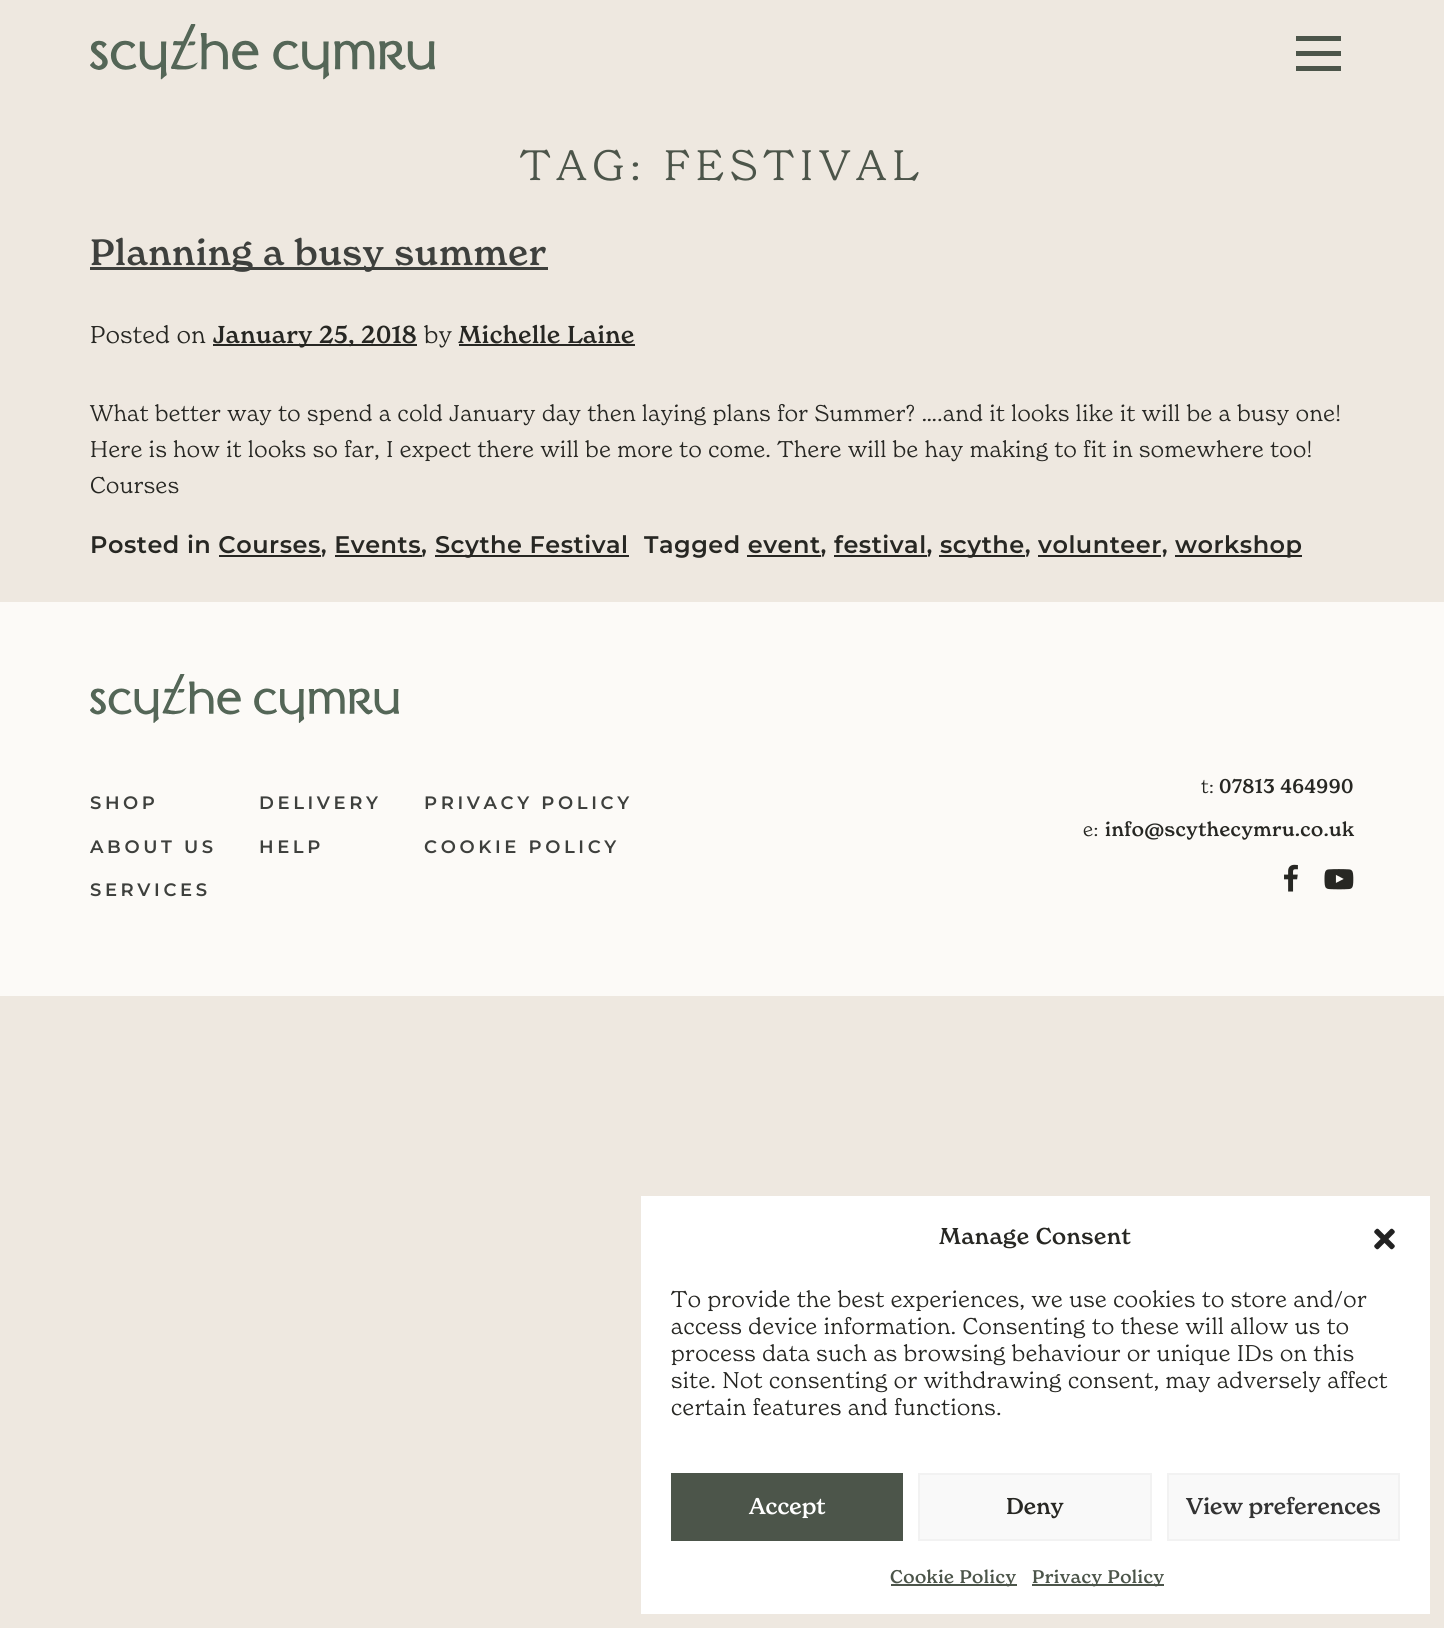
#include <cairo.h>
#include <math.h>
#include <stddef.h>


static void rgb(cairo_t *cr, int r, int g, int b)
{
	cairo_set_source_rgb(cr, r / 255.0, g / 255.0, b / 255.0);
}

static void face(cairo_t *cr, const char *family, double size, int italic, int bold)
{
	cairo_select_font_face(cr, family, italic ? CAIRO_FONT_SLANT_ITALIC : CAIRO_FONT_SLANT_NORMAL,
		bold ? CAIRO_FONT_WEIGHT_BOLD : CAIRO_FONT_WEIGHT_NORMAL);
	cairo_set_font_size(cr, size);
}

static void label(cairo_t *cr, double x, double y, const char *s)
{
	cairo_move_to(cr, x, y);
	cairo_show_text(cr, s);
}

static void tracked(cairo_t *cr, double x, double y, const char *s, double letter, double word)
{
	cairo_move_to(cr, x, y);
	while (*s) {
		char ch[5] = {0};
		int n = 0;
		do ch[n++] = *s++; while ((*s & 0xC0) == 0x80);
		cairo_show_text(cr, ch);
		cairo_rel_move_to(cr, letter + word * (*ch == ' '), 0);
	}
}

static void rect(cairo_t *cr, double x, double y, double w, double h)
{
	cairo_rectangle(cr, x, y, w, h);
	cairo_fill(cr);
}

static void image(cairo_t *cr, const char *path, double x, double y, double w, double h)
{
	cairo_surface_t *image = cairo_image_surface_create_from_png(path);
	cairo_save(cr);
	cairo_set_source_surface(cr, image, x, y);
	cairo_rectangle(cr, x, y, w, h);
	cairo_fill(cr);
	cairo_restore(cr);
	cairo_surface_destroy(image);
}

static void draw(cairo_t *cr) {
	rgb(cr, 238, 232, 224);
	cairo_paint(cr);
	image(cr, "image0.png", 90, 24, 345, 56);
	rgb(cr, 76, 85, 74);
	rect(cr, 1296, 36, 45, 5);
	rect(cr, 1296, 51, 45, 5);
	rect(cr, 1296, 66, 45, 5);
	face(cr, "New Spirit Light", 42, 0, 0);
	tracked(cr, 520, 180, "TAG: FESTIVAL", 6.25, 0);
	rgb(cr, 62, 64, 61);
	rect(cr, 90, 267, 458, 3);
	face(cr, "New Spirit Medium", 36, 0, 0);
	tracked(cr, 90, 265, "Planning a busy summer", 0.9, 0);
	face(cr, "New Spirit Light", 24, 0, 0);
	rgb(cr, 39, 39, 35);
	tracked(cr, 90, 343, "Posted on", 0.49, 0);
	rect(cr, 213, 344, 204, 2);
	face(cr, "New Spirit Medium", 24, 0, 0);
	tracked(cr, 213, 343, "January 25, 2018", 0.49, 0);
	face(cr, "New Spirit Light", 24, 0, 0);
	tracked(cr, 424, 343, "by", 0.49, 0);
	face(cr, "New Spirit Medium", 24, 0, 0);
	tracked(cr, 458, 343, "Michelle Laine", 0.49, 0);
	rect(cr, 459, 344, 176, 2);
	face(cr, "New Spirit Light", 22.5, 0, 0);
	tracked(cr, 90, 421, "What better way to spend a cold January day then laying plans for Summer? ….and it looks like it will be a busy one!", 0.49, 0);
	tracked(cr, 90, 457, "Here is how it looks so far, I expect there will be more to come. There will be hay making to fit in somewhere too!", 0.49, 0);
	tracked(cr, 90, 493, "Courses", 0.49, 0);
	face(cr, "Montserrat SemiBold", 24, 0, 0);
	tracked(cr, 90, 553, "Posted in Courses, Events,", 0.49, 0);
	rect(cr, 219, 555, 102, 2);
	rect(cr, 335, 555, 87, 2);
	rect(cr, 435, 555, 194, 2);
	tracked(cr, 435, 553, "Scythe Festival", 0.49, 0);
	tracked(cr, 644, 553, "Tagged event, festival,", 0.49, 0);
	rect(cr, 747, 555, 74, 2);
	rect(cr, 834, 555, 93, 2);
	rect(cr, 939, 555, 86, 2);
	tracked(cr, 940, 553, "scythe, volunteer,", 0.49, 0);
	rect(cr, 1038, 555, 123, 2);
	rect(cr, 1175, 555, 127, 2);
	tracked(cr, 1175, 553, "workshop", 0.49, 0);
	rgb(cr, 252, 250, 247);
	rect(cr, 0, 602, 1444, 394);
	image(cr, "image1.png", 90, 674, 309, 49);
	face(cr, "Montserrat SemiBold", 18, 0, 0);
	rgb(cr, 62, 64, 61);
	tracked(cr, 90, 809, "SHOP", 3.6, 0);
	tracked(cr, 90, 853, "ABOUT US", 3.6, 0);
	tracked(cr, 90, 896, "SERVICES", 3.6, 0);
	tracked(cr, 259, 809, "DELIVERY", 3.6, 0);
	tracked(cr, 259, 853, "HELP", 3.6, 0);
	tracked(cr, 424, 809, "PRIVACY POLICY", 3.6, 0);
	tracked(cr, 424, 853, "COOKIE POLICY", 3.6, 0);
	face(cr, "New Spirit Light", 19.5, 0, 0);
	rgb(cr, 39, 39, 35);
	tracked(cr, 1201, 793, "t:", 0.49, 0);
	face(cr, "New Spirit Medium", 19.5, 0, 0);
	tracked(cr, 1219, 793, "07813 464990", 0.49, 0);
	face(cr, "New Spirit Light", 19.5, 0, 0);
	tracked(cr, 1083, 836, "e:", 0.49, 0);
	face(cr, "New Spirit Medium", 19.5, 0, 0);
	tracked(cr, 1105, 836, "info@scythecymru.co.uk", 0.49, 0);
	image(cr, "image2.png", 1284, 864, 14, 28);
	image(cr, "image3.png", 1324, 869, 30, 21);
	rgb(cr, 255, 255, 255);
	rect(cr, 641, 1196, 789, 418);
	face(cr, "New Spirit Medium", 22.5, 0, 0);
	rgb(cr, 39, 39, 35);
	tracked(cr, 939, 1244, "Manage Consent", 0.49, 0);
	image(cr, "image4.png", 1374, 1228, 21, 22);
	face(cr, "New Spirit Light", 22.5, 0, 0);
	tracked(cr, 671, 1307, "To provide the best experiences, we use cookies to store and/or", 0.49, 0);
	tracked(cr, 671, 1334, "access device information. Consenting to these will allow us to", 0.49, 0);
	tracked(cr, 671, 1361, "process data such as browsing behaviour or unique IDs on this", 0.49, 0);
	tracked(cr, 671, 1388, "site. Not consenting or withdrawing consent, may adversely affect", 0.49, 0);
	tracked(cr, 671, 1415, "certain features and functions.", 0.49, 0);
	rgb(cr, 76, 85, 74);
	rect(cr, 671, 1473, 232, 68);
	face(cr, "New Spirit Medium", 22.5, 0, 0);
	rgb(cr, 255, 255, 255);
	label(cr, 749, 1514, "Accept");
	rgb(cr, 249, 249, 249);
	cairo_rectangle(cr, 919, 1474, 232, 66);
	cairo_fill_preserve(cr);
	rgb(cr, 242, 242, 242);
	cairo_stroke(cr);
	rgb(cr, 39, 39, 35);
	label(cr, 1006, 1514, "Deny");
	rgb(cr, 249, 249, 249);
	cairo_rectangle(cr, 1168, 1474, 231, 66);
	cairo_fill_preserve(cr);
	rgb(cr, 242, 242, 242);
	cairo_stroke(cr);
	rgb(cr, 51, 51, 51);
	label(cr, 1186, 1514, "View preferences");
	rgb(cr, 76, 85, 74);
	rect(cr, 891, 1584, 126, 2);
	face(cr, "New Spirit Medium", 18, 0, 0);
	tracked(cr, 890, 1583, "Cookie Policy", 0.49, 0);
	rect(cr, 1032, 1584, 132, 2);
	tracked(cr, 1032, 1583, "Privacy Policy", 0.49, 0);
}

int main(void) {
	cairo_surface_t *surface = cairo_image_surface_create(CAIRO_FORMAT_RGB24, 1444, 1628);
	cairo_t *cr = cairo_create(surface);
	cairo_font_options_t *options = cairo_font_options_create();
	cairo_font_options_set_hint_metrics(options, CAIRO_HINT_METRICS_OFF);
	cairo_font_options_set_hint_style(options, CAIRO_HINT_STYLE_NONE);
	cairo_set_font_options(cr, options);
	cairo_set_miter_limit(cr, 4);
	draw(cr);
	cairo_surface_write_to_png(surface, "render.png");
	cairo_font_options_destroy(options);
	cairo_destroy(cr);
	cairo_surface_destroy(surface);
	return 0;
}
